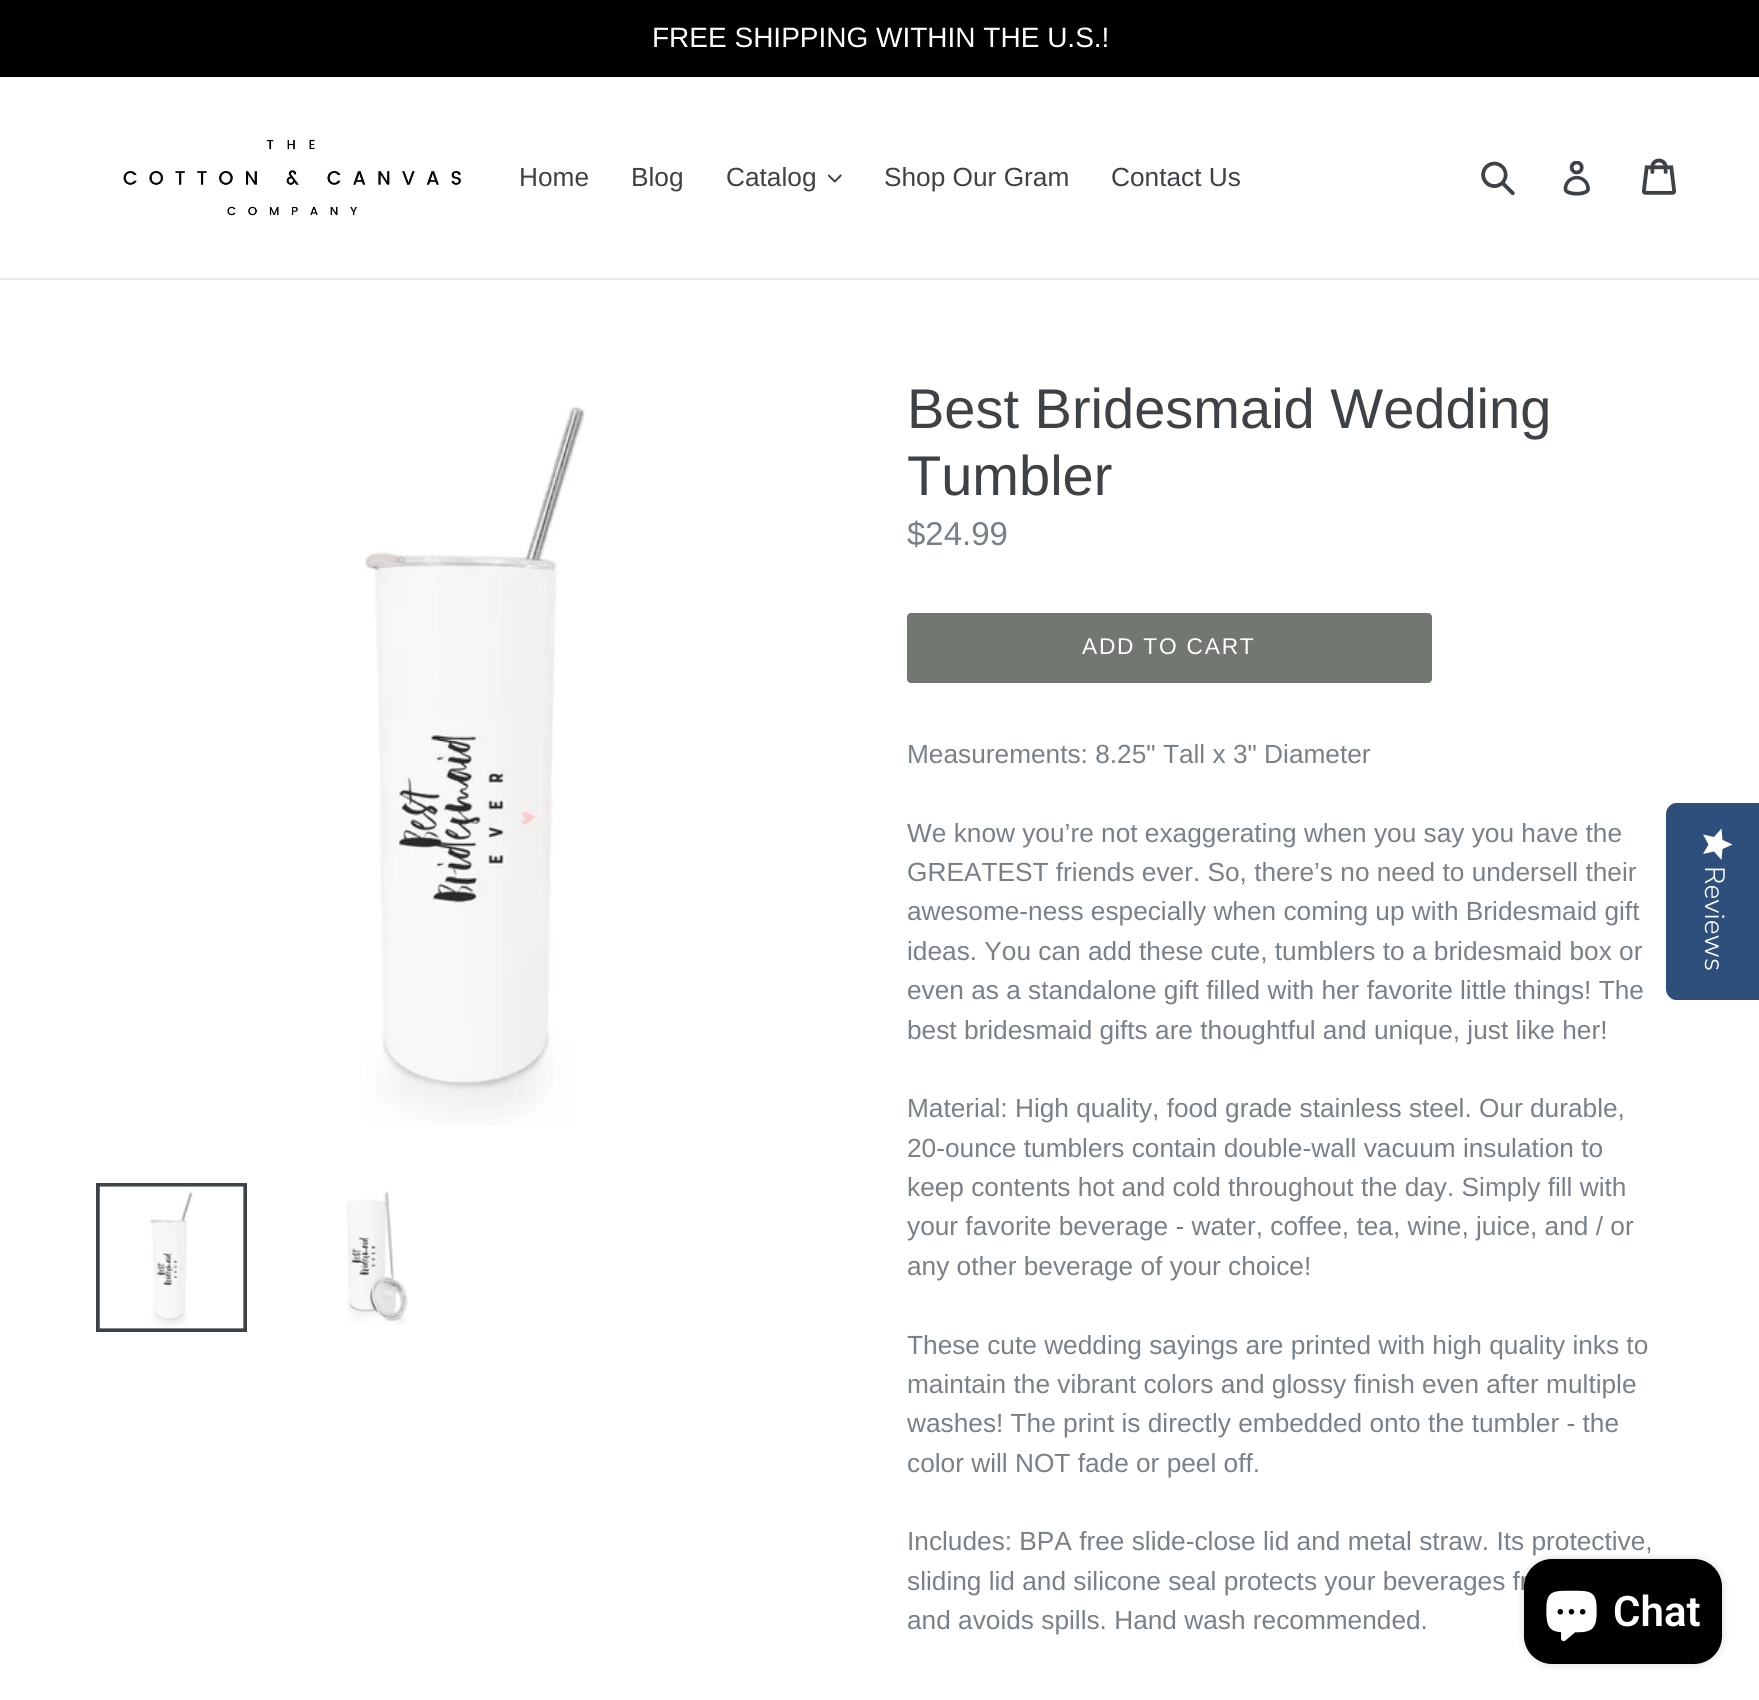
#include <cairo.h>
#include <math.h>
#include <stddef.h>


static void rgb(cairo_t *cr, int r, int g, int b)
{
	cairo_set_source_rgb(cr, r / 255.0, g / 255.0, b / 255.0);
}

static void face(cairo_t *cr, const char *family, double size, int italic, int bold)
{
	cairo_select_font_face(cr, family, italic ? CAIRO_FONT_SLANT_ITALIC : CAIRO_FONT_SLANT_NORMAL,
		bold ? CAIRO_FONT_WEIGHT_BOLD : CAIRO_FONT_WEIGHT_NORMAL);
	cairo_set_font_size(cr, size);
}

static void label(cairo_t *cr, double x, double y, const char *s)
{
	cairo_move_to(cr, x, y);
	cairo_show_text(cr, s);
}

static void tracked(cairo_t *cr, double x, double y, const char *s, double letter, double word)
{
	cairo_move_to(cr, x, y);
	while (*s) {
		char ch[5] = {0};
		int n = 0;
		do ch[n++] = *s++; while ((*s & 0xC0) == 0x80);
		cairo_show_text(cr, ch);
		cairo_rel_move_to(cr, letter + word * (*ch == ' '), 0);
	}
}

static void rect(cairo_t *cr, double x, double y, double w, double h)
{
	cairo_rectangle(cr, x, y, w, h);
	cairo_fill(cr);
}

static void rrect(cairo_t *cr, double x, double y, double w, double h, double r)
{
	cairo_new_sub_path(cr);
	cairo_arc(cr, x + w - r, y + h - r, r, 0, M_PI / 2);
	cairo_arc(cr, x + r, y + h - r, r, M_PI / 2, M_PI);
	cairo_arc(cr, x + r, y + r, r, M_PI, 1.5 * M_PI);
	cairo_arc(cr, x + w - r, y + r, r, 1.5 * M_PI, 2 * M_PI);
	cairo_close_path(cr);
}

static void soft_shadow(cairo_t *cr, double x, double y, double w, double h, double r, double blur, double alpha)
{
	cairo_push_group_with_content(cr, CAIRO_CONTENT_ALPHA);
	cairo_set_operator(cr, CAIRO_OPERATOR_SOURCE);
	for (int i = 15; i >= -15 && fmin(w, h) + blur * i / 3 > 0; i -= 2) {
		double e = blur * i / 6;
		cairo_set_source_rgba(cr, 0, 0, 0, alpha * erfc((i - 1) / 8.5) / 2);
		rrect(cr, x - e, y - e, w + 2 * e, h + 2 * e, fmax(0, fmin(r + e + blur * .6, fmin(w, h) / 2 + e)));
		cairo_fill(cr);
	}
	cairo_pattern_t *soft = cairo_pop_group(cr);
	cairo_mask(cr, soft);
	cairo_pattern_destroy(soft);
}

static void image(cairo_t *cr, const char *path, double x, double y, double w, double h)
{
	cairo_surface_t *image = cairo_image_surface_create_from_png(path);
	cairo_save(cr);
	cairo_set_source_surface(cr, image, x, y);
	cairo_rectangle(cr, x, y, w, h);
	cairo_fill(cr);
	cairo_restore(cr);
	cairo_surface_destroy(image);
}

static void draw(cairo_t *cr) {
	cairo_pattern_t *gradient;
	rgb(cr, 255, 255, 255);
	cairo_paint(cr);
	rgb(cr, 0, 0, 0);
	rect(cr, 0, 0, 1759, 77);
	face(cr, "Liberation Sans", 28, 0, 0);
	rgb(cr, 255, 255, 255);
	label(cr, 652, 47, "FREE SHIPPING WITHIN THE U.S.!");
	rgb(cr, 232, 233, 235);
	rect(cr, 0, 278, 1759, 2);
	image(cr, "image0.png", 123, 139, 339, 78);
	face(cr, "Liberation Sans", 26.25, 0, 0);
	rgb(cr, 61, 66, 70);
	label(cr, 519, 186, "Home");
	label(cr, 631, 186, "Blog");
	label(cr, 726, 186, "Catalog");
	image(cr, "image1.png", 828, 174, 14, 9);
	label(cr, 884, 186, "Shop Our Gram");
	label(cr, 1111, 186, "Contact Us");
	image(cr, "image2.png", 1481, 161, 34, 35);
	image(cr, "image3.png", 1563, 161, 27, 35);
	image(cr, "image4.png", 1642, 158, 34, 37);
	image(cr, "image5.png", 365, 405, 223, 721);
	cairo_rectangle(cr, 98, 1185, 147, 145);
	cairo_set_line_width(cr, 4);
	cairo_stroke(cr);
	image(cr, "image6.png", 99, 1185, 145, 144);
	image(cr, "image7.png", 346, 1191, 62, 134);
	face(cr, "Liberation Sans", 56, 0, 0);
	label(cr, 907, 428, "Best Bridesmaid Wedding");
	label(cr, 907, 495, "Tumbler");
	face(cr, "Liberation Sans", 33, 0, 0);
	rgb(cr, 120, 129, 136);
	label(cr, 907, 545, "$24.99");
	rgb(cr, 115, 119, 114);
	rrect(cr, 907, 613, 525, 70, 4);
	cairo_fill(cr);
	face(cr, "Liberation Sans", 22.75, 0, 0);
	rgb(cr, 255, 255, 255);
	tracked(cr, 1082, 654, "ADD TO CART", 1.75, 0);
	face(cr, "Liberation Sans", 26.25, 0, 0);
	rgb(cr, 120, 129, 136);
	label(cr, 907, 763, "Measurements: 8.25\" Tall x 3\" Diameter");
	label(cr, 907, 842, "We know you’re not exaggerating when you say you have the");
	label(cr, 907, 881, "GREATEST friends ever. So, there’s no need to undersell their");
	label(cr, 907, 920, "awesome-ness especially when coming up with Bridesmaid gift");
	label(cr, 907, 960, "ideas. You can add these cute, tumblers to a bridesmaid box or");
	label(cr, 907, 999, "even as a standalone gift filled with her favorite little things! The");
	label(cr, 907, 1039, "best bridesmaid gifts are thoughtful and unique, just like her!");
	label(cr, 907, 1117, "Material: High quality, food grade stainless steel. Our durable,");
	label(cr, 907, 1157, "20-ounce tumblers contain double-wall vacuum insulation to");
	label(cr, 907, 1196, "keep contents hot and cold throughout the day. Simply fill with");
	label(cr, 907, 1235, "your favorite beverage - water, coffee, tea, wine, juice, and / or");
	label(cr, 907, 1275, "any other beverage of your choice!");
	label(cr, 907, 1354, "These cute wedding sayings are printed with high quality inks to");
	label(cr, 907, 1393, "maintain the vibrant colors and glossy finish even after multiple");
	label(cr, 907, 1432, "washes! The print is directly embedded onto the tumbler - the");
	label(cr, 907, 1472, "color will NOT fade or peel off.");
	label(cr, 907, 1550, "Includes: BPA free slide-close lid and metal straw. Its protective,");
	label(cr, 907, 1590, "sliding lid and silicone seal protects your beverages fr");
	label(cr, 907, 1629, "and avoids spills. Hand wash recommended.");
	rgb(cr, 46, 79, 124);
	cairo_new_path(cr);
	cairo_move_to(cr, 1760, 803);
	cairo_line_to(cr, 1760, 1000);
	cairo_line_to(cr, 1676, 1000);
	cairo_curve_to(cr, 1671, 1000, 1666, 995, 1666, 989);
	cairo_line_to(cr, 1666, 814);
	cairo_curve_to(cr, 1666, 808, 1671, 803, 1676, 803);
	cairo_close_path(cr);
	cairo_fill(cr);
	gradient = cairo_pattern_create_linear(1733, 829, 1733, 860);
	cairo_pattern_add_color_stop_rgba(gradient, 1, 1, 1, 1, 1);
	cairo_pattern_add_color_stop_rgba(gradient, 1, 0.918, 0.918, 0.918, 1);
	cairo_set_source(cr, gradient);
	cairo_pattern_destroy(gradient);
	cairo_new_path(cr);
	cairo_move_to(cr, 1708.5, 844.5);
	cairo_line_to(cr, 1703, 854);
	cairo_line_to(cr, 1714, 851.5);
	cairo_line_to(cr, 1721.5, 860);
	cairo_line_to(cr, 1722.5, 849);
	cairo_line_to(cr, 1732.5, 844.5);
	cairo_line_to(cr, 1722.5, 840);
	cairo_line_to(cr, 1721.5, 828.5);
	cairo_line_to(cr, 1714, 837);
	cairo_line_to(cr, 1703, 834.5);
	cairo_close_path(cr);
	cairo_fill(cr);
	face(cr, "Nunito Sans Light", 28, 0, 0);
	rgb(cr, 255, 255, 255);
	cairo_save(cr);
	cairo_translate(cr, 1705, 866);
	cairo_rotate(cr, 90 * M_PI / 180);
	label(cr, 0, 0, "Reviews");
	cairo_restore(cr);
	rgb(cr, 0, 0, 0);
	soft_shadow(cr, 1524, 1559, 198, 105, 28, 4.5, 0.15);
	rgb(cr, 0, 0, 0);
	rrect(cr, 1524, 1559, 198, 105, 28);
	cairo_fill(cr);
	image(cr, "image8.png", 1546, 1590, 51, 52);
	face(cr, "Roboto SemiBold", 42, 0, 0);
	rgb(cr, 255, 255, 255);
	label(cr, 1613, 1626, "Chat");
}

int main(void) {
	cairo_surface_t *surface = cairo_image_surface_create(CAIRO_FORMAT_RGB24, 1759, 1700);
	cairo_t *cr = cairo_create(surface);
	cairo_font_options_t *options = cairo_font_options_create();
	cairo_font_options_set_hint_metrics(options, CAIRO_HINT_METRICS_OFF);
	cairo_font_options_set_hint_style(options, CAIRO_HINT_STYLE_NONE);
	cairo_set_font_options(cr, options);
	cairo_set_miter_limit(cr, 4);
	draw(cr);
	cairo_surface_write_to_png(surface, "render.png");
	cairo_font_options_destroy(options);
	cairo_destroy(cr);
	cairo_surface_destroy(surface);
	return 0;
}
